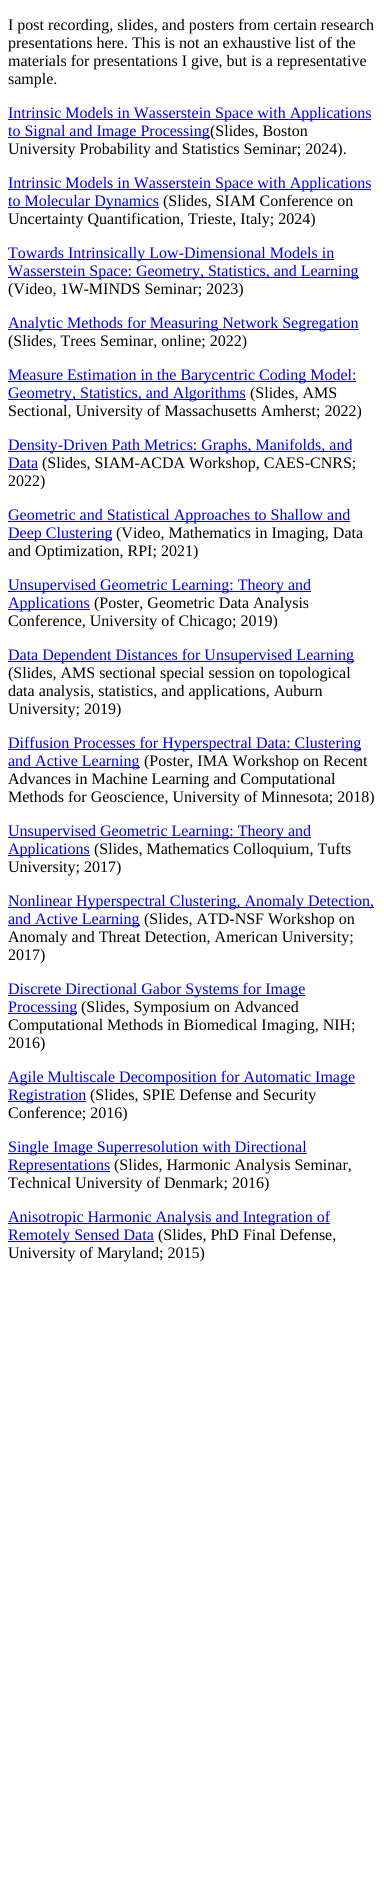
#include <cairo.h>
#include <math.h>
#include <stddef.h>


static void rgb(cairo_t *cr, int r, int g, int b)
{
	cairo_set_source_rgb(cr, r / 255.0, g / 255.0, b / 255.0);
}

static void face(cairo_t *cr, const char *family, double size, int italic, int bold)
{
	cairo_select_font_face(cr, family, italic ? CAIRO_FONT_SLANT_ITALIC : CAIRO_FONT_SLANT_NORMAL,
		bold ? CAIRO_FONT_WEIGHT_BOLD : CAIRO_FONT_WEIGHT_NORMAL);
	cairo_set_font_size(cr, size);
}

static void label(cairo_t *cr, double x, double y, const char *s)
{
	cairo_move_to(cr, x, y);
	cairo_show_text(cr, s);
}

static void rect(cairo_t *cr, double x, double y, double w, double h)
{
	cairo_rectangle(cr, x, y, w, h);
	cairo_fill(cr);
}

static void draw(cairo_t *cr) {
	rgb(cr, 255, 255, 255);
	cairo_paint(cr);
	face(cr, "Liberation Serif", 16, 0, 0);
	rgb(cr, 0, 0, 0);
	label(cr, 8, 30, "I post recording, slides, and posters from certain research");
	label(cr, 8, 48, "presentations here. This is not an exhaustive list of the");
	label(cr, 8, 66, "materials for presentations I give, but is a representative");
	label(cr, 8, 84, "sample.");
	rgb(cr, 0, 0, 238);
	rect(cr, 8, 119, 363, 1);
	label(cr, 8, 118, "Intrinsic Models in Wasserstein Space with Applications");
	rect(cr, 8, 137, 202, 1);
	label(cr, 8, 136, "to Signal and Image Processing");
	rgb(cr, 0, 0, 0);
	label(cr, 210, 136, "(Slides, Boston");
	label(cr, 8, 154, "University Probability and Statistics Seminar; 2024).");
	rgb(cr, 0, 0, 238);
	rect(cr, 8, 189, 363, 1);
	label(cr, 8, 188, "Intrinsic Models in Wasserstein Space with Applications");
	rect(cr, 8, 207, 151, 1);
	label(cr, 8, 206, "to Molecular Dynamics");
	rgb(cr, 0, 0, 0);
	label(cr, 163, 206, "(Slides, SIAM Conference on");
	label(cr, 8, 224, "Uncertainty Quantification, Trieste, Italy; 2024)");
	rgb(cr, 0, 0, 238);
	rect(cr, 8, 259, 326, 1);
	label(cr, 8, 258, "Towards Intrinsically Low-Dimensional Models in");
	rect(cr, 8, 277, 351, 1);
	label(cr, 8, 276, "Wasserstein Space: Geometry, Statistics, and Learning");
	rgb(cr, 0, 0, 0);
	label(cr, 8, 294, "(Video, 1W-MINDS Seminar; 2023)");
	rgb(cr, 0, 0, 238);
	rect(cr, 8, 329, 351, 1);
	label(cr, 8, 328, "Analytic Methods for Measuring Network Segregation");
	rgb(cr, 0, 0, 0);
	label(cr, 8, 346, "(Slides, Trees Seminar, online; 2022)");
	rgb(cr, 0, 0, 238);
	rect(cr, 8, 381, 348, 1);
	label(cr, 8, 380, "Measure Estimation in the Barycentric Coding Model:");
	rect(cr, 8, 399, 238, 1);
	label(cr, 8, 398, "Geometry, Statistics, and Algorithms");
	rgb(cr, 0, 0, 0);
	label(cr, 250, 398, "(Slides, AMS");
	label(cr, 8, 416, "Sectional, University of Massachusetts Amherst; 2022)");
	rgb(cr, 0, 0, 238);
	rect(cr, 8, 451, 344, 1);
	label(cr, 8, 450, "Density-Driven Path Metrics: Graphs, Manifolds, and");
	label(cr, 8, 468, "Data");
	rect(cr, 8, 469, 30, 1);
	rgb(cr, 0, 0, 0);
	label(cr, 42, 468, "(Slides, SIAM-ACDA Workshop, CAES-CNRS;");
	label(cr, 8, 486, "2022)");
	rgb(cr, 0, 0, 238);
	rect(cr, 8, 521, 342, 1);
	label(cr, 8, 520, "Geometric and Statistical Approaches to Shallow and");
	rect(cr, 8, 539, 104, 1);
	label(cr, 8, 538, "Deep Clustering");
	rgb(cr, 0, 0, 0);
	label(cr, 116, 538, "(Video, Mathematics in Imaging, Data");
	label(cr, 8, 556, "and Optimization, RPI; 2021)");
	rgb(cr, 0, 0, 238);
	rect(cr, 8, 591, 303, 1);
	label(cr, 8, 590, "Unsupervised Geometric Learning: Theory and");
	rect(cr, 8, 609, 82, 1);
	label(cr, 8, 608, "Applications");
	rgb(cr, 0, 0, 0);
	label(cr, 94, 608, "(Poster, Geometric Data Analysis");
	label(cr, 8, 626, "Conference, University of Chicago; 2019)");
	rgb(cr, 0, 0, 238);
	rect(cr, 8, 661, 346, 1);
	label(cr, 8, 660, "Data Dependent Distances for Unsupervised Learning");
	rgb(cr, 0, 0, 0);
	label(cr, 8, 678, "(Slides, AMS sectional special session on topological");
	label(cr, 8, 696, "data analysis, statistics, and applications, Auburn");
	label(cr, 8, 714, "University; 2019)");
	rgb(cr, 0, 0, 238);
	rect(cr, 8, 749, 353, 1);
	label(cr, 8, 748, "Diffusion Processes for Hyperspectral Data: Clustering");
	rect(cr, 8, 767, 132, 1);
	label(cr, 8, 766, "and Active Learning");
	rgb(cr, 0, 0, 0);
	label(cr, 144, 766, "(Poster, IMA Workshop on Recent");
	label(cr, 8, 784, "Advances in Machine Learning and Computational");
	label(cr, 8, 802, "Methods for Geoscience, University of Minnesota; 2018)");
	rgb(cr, 0, 0, 238);
	rect(cr, 8, 837, 303, 1);
	label(cr, 8, 836, "Unsupervised Geometric Learning: Theory and");
	rect(cr, 8, 855, 82, 1);
	label(cr, 8, 854, "Applications");
	rgb(cr, 0, 0, 0);
	label(cr, 94, 854, "(Slides, Mathematics Colloquium, Tufts");
	label(cr, 8, 872, "University; 2017)");
	rgb(cr, 0, 0, 238);
	rect(cr, 8, 907, 366, 1);
	label(cr, 8, 906, "Nonlinear Hyperspectral Clustering, Anomaly Detection,");
	rect(cr, 8, 925, 132, 1);
	label(cr, 8, 924, "and Active Learning");
	rgb(cr, 0, 0, 0);
	label(cr, 144, 924, "(Slides, ATD-NSF Workshop on");
	label(cr, 8, 942, "Anomaly and Threat Detection, American University;");
	label(cr, 8, 960, "2017)");
	rgb(cr, 0, 0, 238);
	rect(cr, 8, 995, 297, 1);
	label(cr, 8, 994, "Discrete Directional Gabor Systems for Image");
	rect(cr, 8, 1013, 69, 1);
	label(cr, 8, 1012, "Processing");
	rgb(cr, 0, 0, 0);
	label(cr, 81, 1012, "(Slides, Symposium on Advanced");
	label(cr, 8, 1030, "Computational Methods in Biomedical Imaging, NIH;");
	label(cr, 8, 1048, "2016)");
	rgb(cr, 0, 0, 238);
	rect(cr, 8, 1083, 347, 1);
	label(cr, 8, 1082, "Agile Multiscale Decomposition for Automatic Image");
	rect(cr, 8, 1101, 78, 1);
	label(cr, 8, 1100, "Registration");
	rgb(cr, 0, 0, 0);
	label(cr, 90, 1100, "(Slides, SPIE Defense and Security");
	label(cr, 8, 1118, "Conference; 2016)");
	rgb(cr, 0, 0, 238);
	rect(cr, 8, 1153, 299, 1);
	label(cr, 8, 1152, "Single Image Superresolution with Directional");
	rect(cr, 8, 1171, 102, 1);
	label(cr, 8, 1170, "Representations");
	rgb(cr, 0, 0, 0);
	label(cr, 114, 1170, "(Slides, Harmonic Analysis Seminar,");
	label(cr, 8, 1188, "Technical University of Denmark; 2016)");
	rgb(cr, 0, 0, 238);
	rect(cr, 8, 1223, 322, 1);
	label(cr, 8, 1222, "Anisotropic Harmonic Analysis and Integration of");
	rect(cr, 8, 1241, 146, 1);
	label(cr, 8, 1240, "Remotely Sensed Data");
	rgb(cr, 0, 0, 0);
	label(cr, 158, 1240, "(Slides, PhD Final Defense,");
	label(cr, 8, 1258, "University of Maryland; 2015)");
}

int main(void) {
	cairo_surface_t *surface = cairo_image_surface_create(CAIRO_FORMAT_RGB24, 384, 1893);
	cairo_t *cr = cairo_create(surface);
	cairo_font_options_t *options = cairo_font_options_create();
	cairo_font_options_set_hint_metrics(options, CAIRO_HINT_METRICS_OFF);
	cairo_font_options_set_hint_style(options, CAIRO_HINT_STYLE_NONE);
	cairo_set_font_options(cr, options);
	cairo_set_miter_limit(cr, 4);
	draw(cr);
	cairo_surface_write_to_png(surface, "render.png");
	cairo_font_options_destroy(options);
	cairo_destroy(cr);
	cairo_surface_destroy(surface);
	return 0;
}
